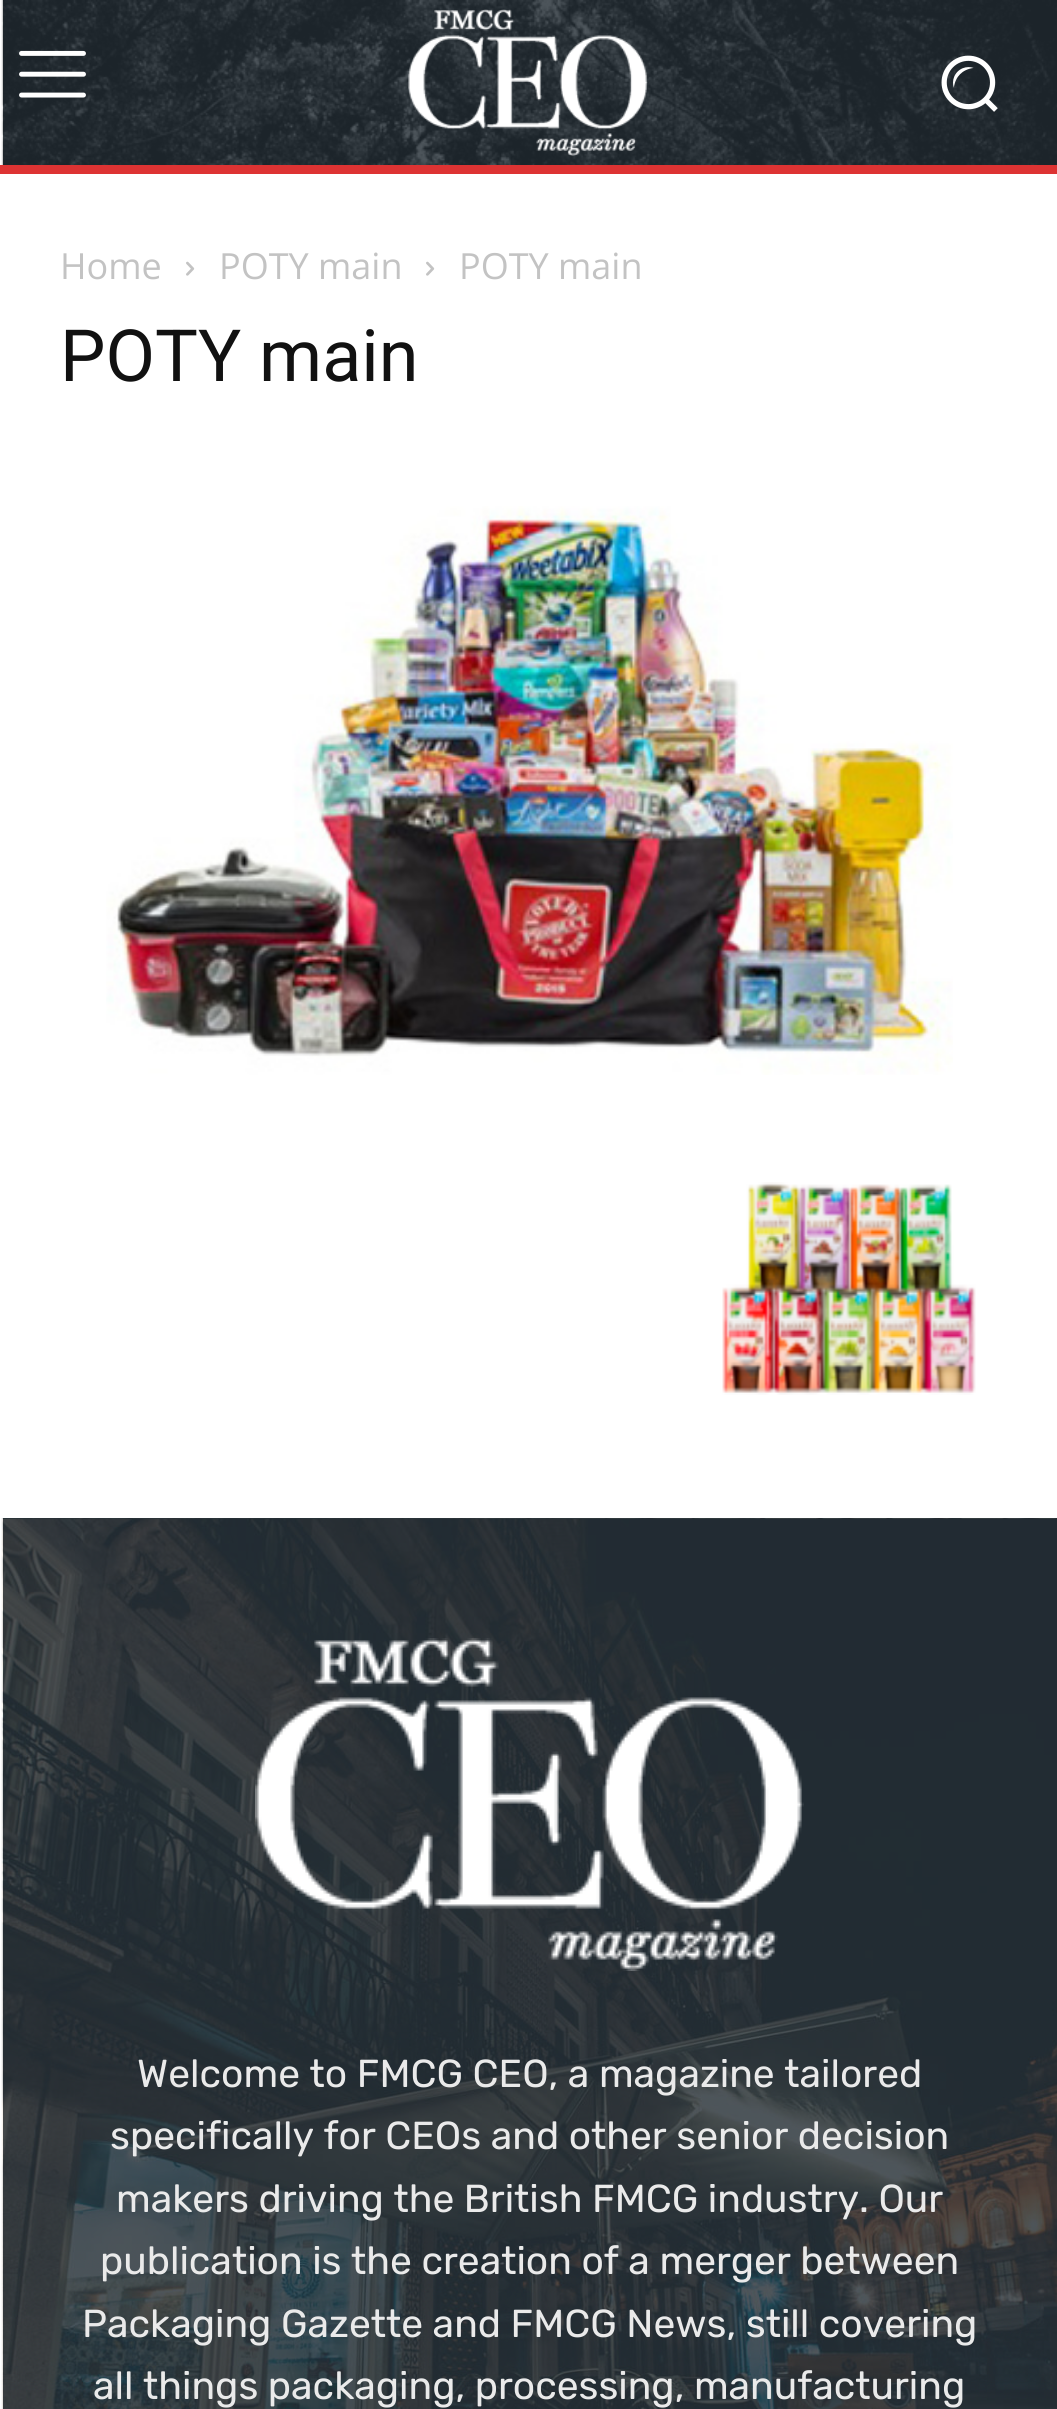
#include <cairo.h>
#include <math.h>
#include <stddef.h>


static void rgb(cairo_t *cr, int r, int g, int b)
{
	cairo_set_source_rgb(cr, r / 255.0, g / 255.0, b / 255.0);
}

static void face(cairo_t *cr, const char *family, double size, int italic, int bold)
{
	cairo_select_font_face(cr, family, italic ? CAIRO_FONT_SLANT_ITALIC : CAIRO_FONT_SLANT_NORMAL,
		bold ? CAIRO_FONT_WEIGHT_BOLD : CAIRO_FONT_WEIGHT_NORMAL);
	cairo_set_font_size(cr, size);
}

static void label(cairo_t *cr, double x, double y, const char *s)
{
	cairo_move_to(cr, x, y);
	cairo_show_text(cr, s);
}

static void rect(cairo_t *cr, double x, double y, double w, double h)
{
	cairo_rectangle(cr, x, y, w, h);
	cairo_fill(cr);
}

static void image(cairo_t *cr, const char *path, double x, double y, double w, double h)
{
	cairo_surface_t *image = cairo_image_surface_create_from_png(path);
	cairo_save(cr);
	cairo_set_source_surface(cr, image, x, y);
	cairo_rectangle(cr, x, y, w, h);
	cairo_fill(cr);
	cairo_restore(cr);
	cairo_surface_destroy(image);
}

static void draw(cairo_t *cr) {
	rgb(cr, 255, 255, 255);
	cairo_paint(cr);
	rgb(cr, 35, 45, 53);
	rect(cr, 3, 0, 1054, 165);
	image(cr, "image0.png", 1, 0, 1056, 165);
	image(cr, "image1.png", 19, 50, 67, 48);
	image(cr, "image2.png", 408, 9, 240, 147);
	image(cr, "image3.png", 941, 55, 57, 57);
	rgb(cr, 221, 51, 51);
	rect(cr, 0, 165, 1057, 9);
	face(cr, "Open Sans", 36, 0, 0);
	rgb(cr, 195, 195, 195);
	label(cr, 60, 279, "Home");
	image(cr, "image4.png", 186, 261, 9, 15);
	label(cr, 219, 279, "POTY main");
	image(cr, "image4.png", 426, 261, 9, 15);
	label(cr, 459, 279, "POTY main");
	face(cr, "Roboto", 72, 0, 0);
	rgb(cr, 17, 17, 17);
	label(cr, 60, 381, "POTY main");
	image(cr, "image5.png", 106, 506, 847, 569);
	image(cr, "image6.png", 722, 1182, 254, 213);
	rgb(cr, 35, 45, 53);
	rect(cr, 3, 1518, 1054, 891);
	image(cr, "image7.png", 1, 1518, 1056, 891);
	image(cr, "image8.png", 255, 1638, 549, 333);
	face(cr, "Rubik Light", 39, 0, 0);
	rgb(cr, 234, 234, 234);
	label(cr, 137, 2087, "Welcome to FMCG CEO, a magazine tailored");
	label(cr, 110, 2149, "specifically for CEOs and other senior decision");
	label(cr, 116, 2212, "makers driving the British FMCG industry. Our");
	label(cr, 100, 2274, "publication is the creation of a merger between");
	label(cr, 82, 2337, "Packaging Gazette and FMCG News, still covering");
	label(cr, 93, 2399, "all things packaging, processing, manufacturing");
}

int main(void) {
	cairo_surface_t *surface = cairo_image_surface_create(CAIRO_FORMAT_RGB24, 1057, 2409);
	cairo_t *cr = cairo_create(surface);
	cairo_font_options_t *options = cairo_font_options_create();
	cairo_font_options_set_hint_metrics(options, CAIRO_HINT_METRICS_OFF);
	cairo_font_options_set_hint_style(options, CAIRO_HINT_STYLE_NONE);
	cairo_set_font_options(cr, options);
	cairo_set_miter_limit(cr, 4);
	draw(cr);
	cairo_surface_write_to_png(surface, "render.png");
	cairo_font_options_destroy(options);
	cairo_destroy(cr);
	cairo_surface_destroy(surface);
	return 0;
}
